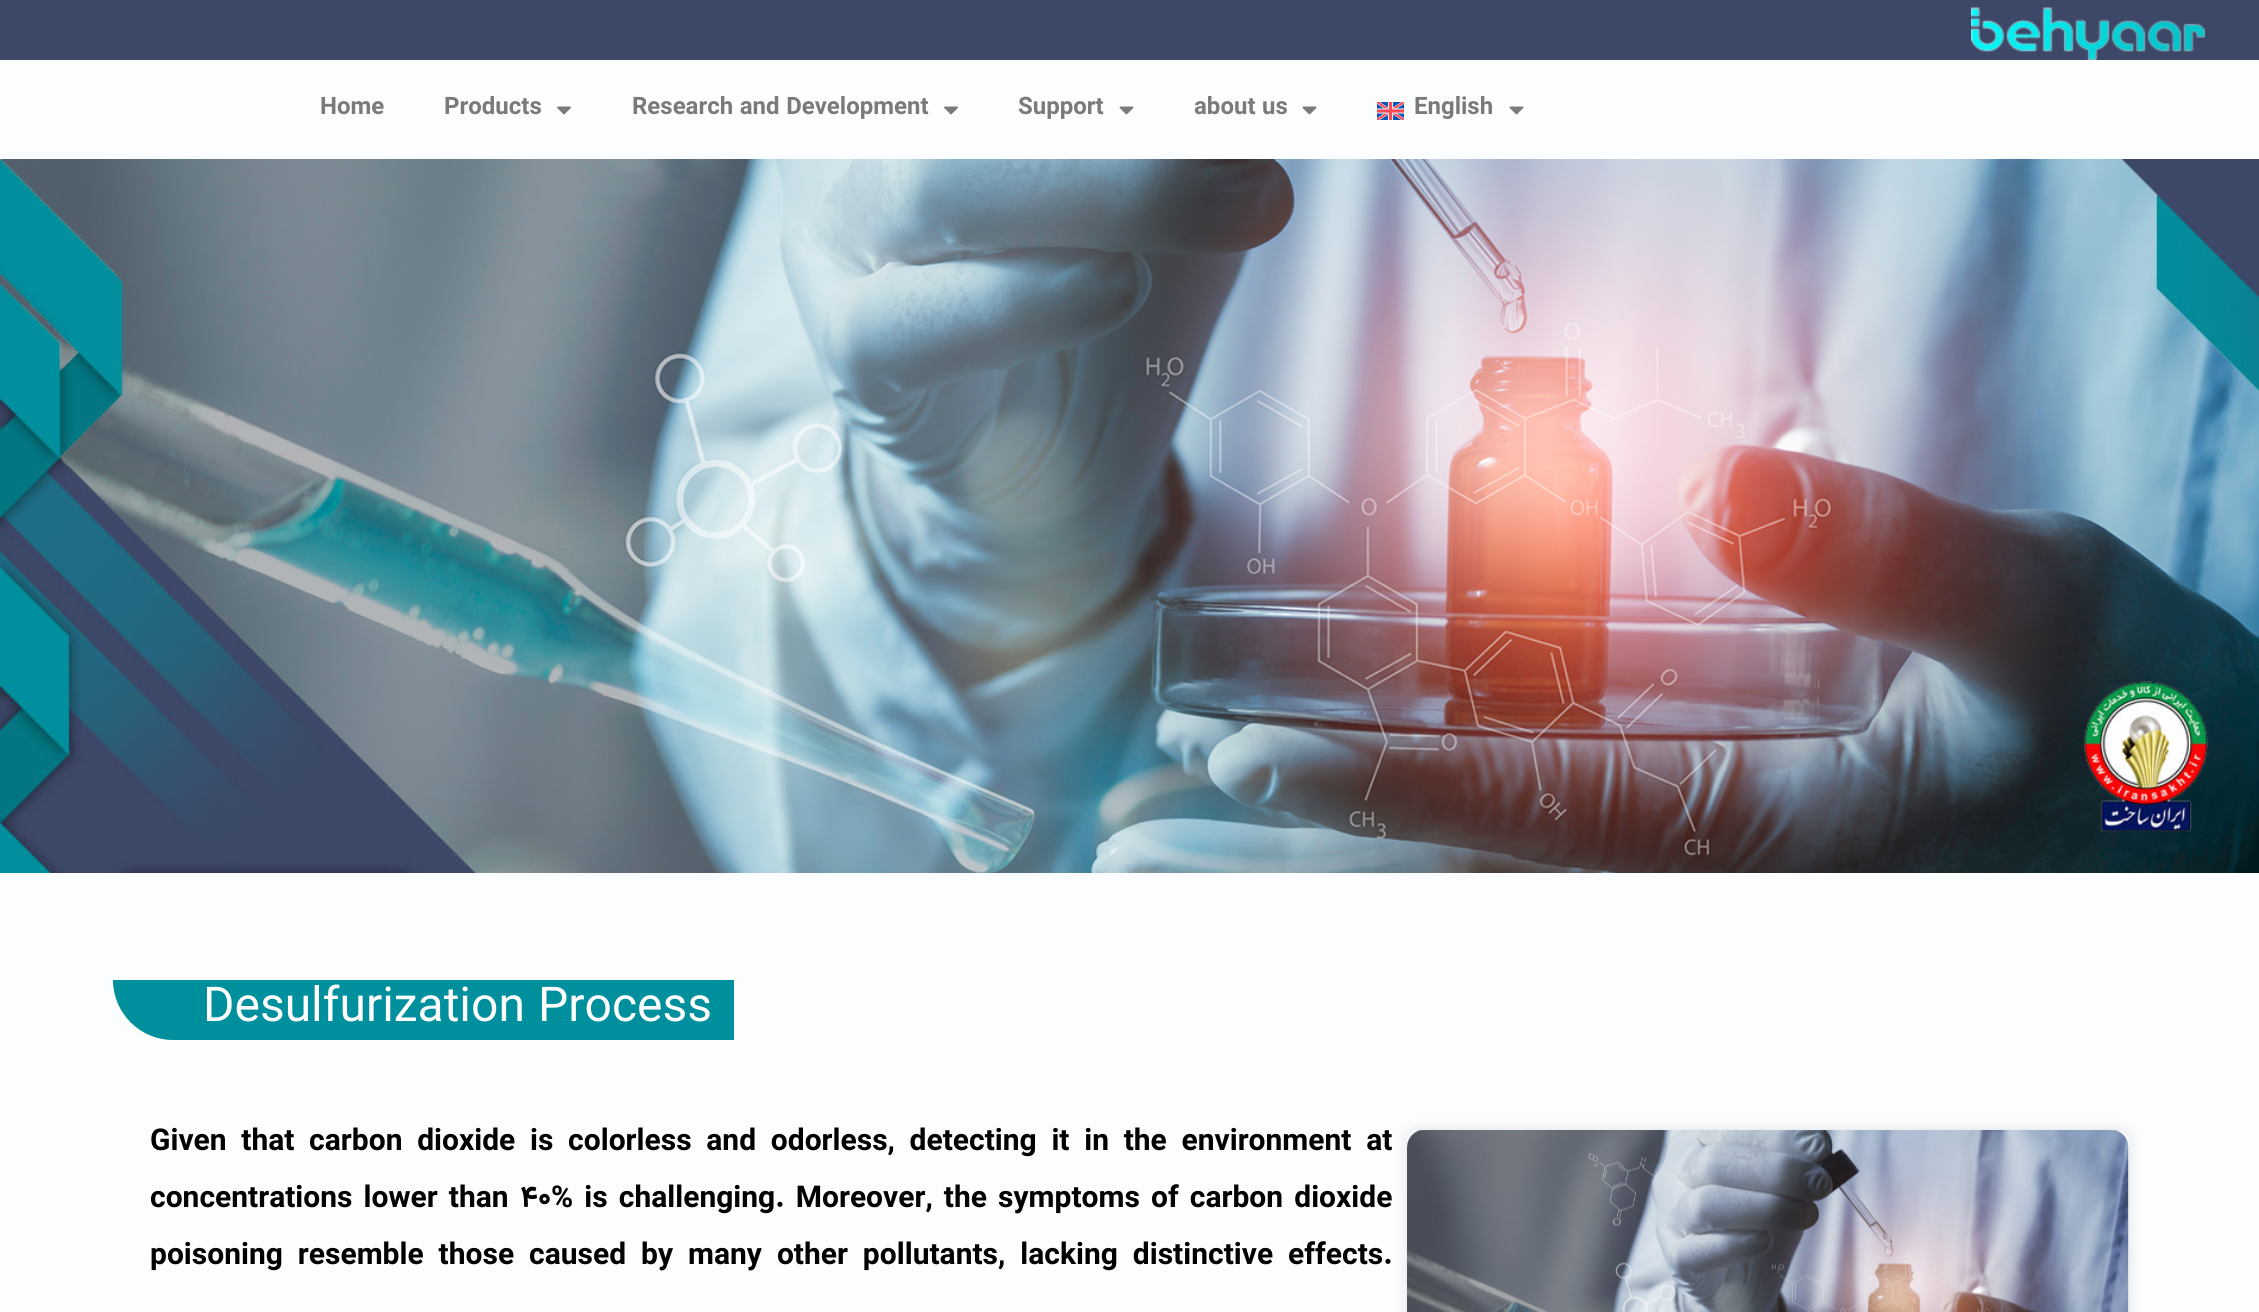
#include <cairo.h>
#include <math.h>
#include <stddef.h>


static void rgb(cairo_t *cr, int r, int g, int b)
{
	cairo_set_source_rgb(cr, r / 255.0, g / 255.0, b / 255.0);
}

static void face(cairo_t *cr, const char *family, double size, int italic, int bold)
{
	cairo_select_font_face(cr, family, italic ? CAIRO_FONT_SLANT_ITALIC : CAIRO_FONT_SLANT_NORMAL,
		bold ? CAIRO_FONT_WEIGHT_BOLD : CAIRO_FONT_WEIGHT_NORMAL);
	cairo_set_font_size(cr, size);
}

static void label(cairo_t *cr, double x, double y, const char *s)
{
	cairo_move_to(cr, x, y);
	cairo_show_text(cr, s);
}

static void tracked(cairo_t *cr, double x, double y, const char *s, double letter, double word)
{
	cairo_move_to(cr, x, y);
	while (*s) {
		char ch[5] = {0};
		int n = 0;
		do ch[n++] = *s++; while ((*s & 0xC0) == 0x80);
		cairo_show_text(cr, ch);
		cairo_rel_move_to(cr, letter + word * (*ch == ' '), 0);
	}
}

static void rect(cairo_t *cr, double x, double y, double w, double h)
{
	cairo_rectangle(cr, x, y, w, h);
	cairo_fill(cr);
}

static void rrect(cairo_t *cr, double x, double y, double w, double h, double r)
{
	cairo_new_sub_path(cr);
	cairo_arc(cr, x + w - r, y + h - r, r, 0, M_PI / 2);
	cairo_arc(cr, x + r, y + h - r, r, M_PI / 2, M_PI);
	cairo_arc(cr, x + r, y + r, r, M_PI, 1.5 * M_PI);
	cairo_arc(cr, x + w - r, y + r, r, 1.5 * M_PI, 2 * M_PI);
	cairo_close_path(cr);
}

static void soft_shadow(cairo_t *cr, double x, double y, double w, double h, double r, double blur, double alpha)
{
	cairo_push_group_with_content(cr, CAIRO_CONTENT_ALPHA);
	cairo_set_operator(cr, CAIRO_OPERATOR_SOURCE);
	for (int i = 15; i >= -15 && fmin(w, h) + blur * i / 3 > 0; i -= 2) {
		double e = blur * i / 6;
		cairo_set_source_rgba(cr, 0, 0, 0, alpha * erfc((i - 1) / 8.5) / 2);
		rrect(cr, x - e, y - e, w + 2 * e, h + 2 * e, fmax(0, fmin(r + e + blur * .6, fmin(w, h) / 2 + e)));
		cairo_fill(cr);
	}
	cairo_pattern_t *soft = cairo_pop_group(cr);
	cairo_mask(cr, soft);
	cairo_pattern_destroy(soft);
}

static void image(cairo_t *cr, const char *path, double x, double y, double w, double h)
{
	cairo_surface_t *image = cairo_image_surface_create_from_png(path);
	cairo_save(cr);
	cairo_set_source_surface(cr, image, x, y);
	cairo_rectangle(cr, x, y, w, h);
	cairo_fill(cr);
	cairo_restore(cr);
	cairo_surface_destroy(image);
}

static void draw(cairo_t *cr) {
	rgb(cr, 252, 253, 255);
	cairo_paint(cr);
	rgb(cr, 61, 72, 104);
	rect(cr, 0, 0, 2259, 60);
	image(cr, "image0.png", 1971, 7, 234, 53);
	face(cr, "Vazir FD", 24, 0, 1);
	rgb(cr, 122, 122, 122);
	label(cr, 320, 114, "Home");
	label(cr, 444, 114, "Products");
	image(cr, "image1.png", 557, 106, 14, 9);
	label(cr, 632, 114, "Research and Development");
	image(cr, "image1.png", 944, 106, 14, 9);
	label(cr, 1018, 114, "Support");
	image(cr, "image2.png", 1119, 106, 15, 9);
	label(cr, 1194, 114, "about us");
	image(cr, "image2.png", 1302, 106, 15, 9);
	image(cr, "image3.png", 1377, 102, 27, 18);
	label(cr, 1414, 114, "English");
	image(cr, "image2.png", 1509, 106, 15, 9);
	image(cr, "image4.png", 0, 159, 2259, 714);
	rgb(cr, 0, 143, 157);
	cairo_new_path(cr);
	cairo_move_to(cr, 113, 980);
	cairo_line_to(cr, 734, 980);
	cairo_line_to(cr, 734, 1040);
	cairo_line_to(cr, 173, 1040);
	cairo_curve_to(cr, 140, 1040, 113, 1013, 113, 980);
	cairo_close_path(cr);
	cairo_fill(cr);
	face(cr, "Vazir FD", 48, 0, 0);
	rgb(cr, 255, 255, 255);
	label(cr, 203, 1021, "Desulfurization Process");
	face(cr, "Vazir FD", 30, 0, 1);
	rgb(cr, 0, 0, 0);
	tracked(cr, 150, 1150, "Given that carbon dioxide is colorless and odorless, detecting it in the environment at", 0, 6.5);
	tracked(cr, 150, 1207, "concentrations lower than 40% is challenging. Moreover, the symptoms of carbon dioxide", 0, 2.9);
	tracked(cr, 150, 1264, "poisoning resemble those caused by many other pollutants, lacking distinctive effects.", 0, 6.75);
	cairo_save(cr);
	cairo_set_fill_rule(cr, CAIRO_FILL_RULE_EVEN_ODD);
	cairo_new_path(cr);
	cairo_move_to(cr, 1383, 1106);
	cairo_line_to(cr, 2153, 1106);
	cairo_line_to(cr, 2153, 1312);
	cairo_line_to(cr, 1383, 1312);
	cairo_close_path(cr);
	cairo_move_to(cr, 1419, 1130);
	cairo_line_to(cr, 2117, 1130);
	cairo_curve_to(cr, 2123.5, 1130, 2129, 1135.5, 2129, 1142);
	cairo_line_to(cr, 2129, 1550);
	cairo_curve_to(cr, 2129, 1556.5, 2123.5, 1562, 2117, 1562);
	cairo_line_to(cr, 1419, 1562);
	cairo_curve_to(cr, 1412.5, 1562, 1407, 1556.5, 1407, 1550);
	cairo_line_to(cr, 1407, 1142);
	cairo_curve_to(cr, 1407, 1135.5, 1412.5, 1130, 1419, 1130);
	cairo_close_path(cr);
	cairo_clip(cr);
	rgb(cr, 0, 0, 0);
	soft_shadow(cr, 1407, 1130, 722, 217, 12, 7.5, 0.11);
	cairo_restore(cr);
	image(cr, "image5.png", 1407, 1130, 722, 182);
}

int main(void) {
	cairo_surface_t *surface = cairo_image_surface_create(CAIRO_FORMAT_RGB24, 2259, 1312);
	cairo_t *cr = cairo_create(surface);
	cairo_font_options_t *options = cairo_font_options_create();
	cairo_font_options_set_hint_metrics(options, CAIRO_HINT_METRICS_OFF);
	cairo_font_options_set_hint_style(options, CAIRO_HINT_STYLE_NONE);
	cairo_set_font_options(cr, options);
	cairo_set_miter_limit(cr, 4);
	draw(cr);
	cairo_surface_write_to_png(surface, "render.png");
	cairo_font_options_destroy(options);
	cairo_destroy(cr);
	cairo_surface_destroy(surface);
	return 0;
}
